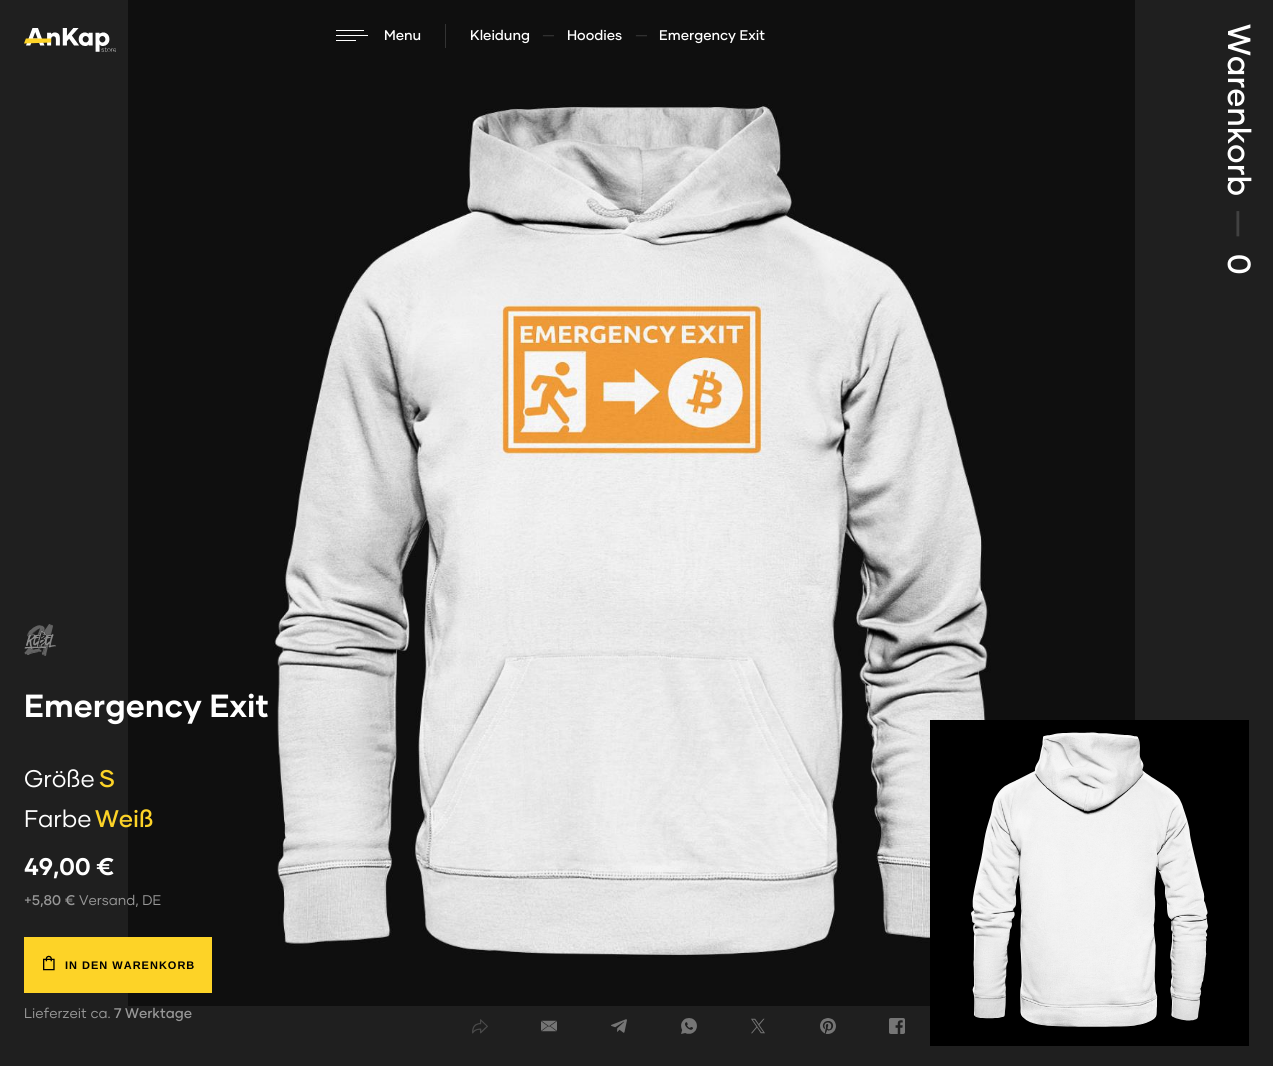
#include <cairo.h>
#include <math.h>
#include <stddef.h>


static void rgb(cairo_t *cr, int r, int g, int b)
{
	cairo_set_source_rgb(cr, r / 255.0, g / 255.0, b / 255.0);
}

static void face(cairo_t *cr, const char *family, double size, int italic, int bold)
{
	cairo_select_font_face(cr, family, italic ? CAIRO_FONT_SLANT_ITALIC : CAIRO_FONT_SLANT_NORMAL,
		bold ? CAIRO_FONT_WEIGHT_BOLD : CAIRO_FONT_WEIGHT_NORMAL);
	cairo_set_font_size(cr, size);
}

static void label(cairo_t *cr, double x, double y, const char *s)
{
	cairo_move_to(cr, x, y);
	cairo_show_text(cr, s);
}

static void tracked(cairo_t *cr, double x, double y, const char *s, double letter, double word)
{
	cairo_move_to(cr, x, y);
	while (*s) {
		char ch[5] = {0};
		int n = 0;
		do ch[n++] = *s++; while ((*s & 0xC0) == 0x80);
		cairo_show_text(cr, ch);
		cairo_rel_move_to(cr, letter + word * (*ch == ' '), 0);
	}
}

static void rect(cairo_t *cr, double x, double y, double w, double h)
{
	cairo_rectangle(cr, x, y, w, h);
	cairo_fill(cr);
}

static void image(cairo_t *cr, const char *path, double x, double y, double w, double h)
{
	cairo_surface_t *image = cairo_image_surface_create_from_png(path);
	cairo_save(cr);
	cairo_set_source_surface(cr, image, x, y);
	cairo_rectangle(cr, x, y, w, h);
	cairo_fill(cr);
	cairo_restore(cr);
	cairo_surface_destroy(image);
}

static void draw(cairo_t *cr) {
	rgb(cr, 31, 31, 31);
	cairo_paint(cr);
	image(cr, "image0.png", 24, 28, 92, 24);
	rgb(cr, 15, 15, 15);
	rect(cr, 128, 0, 1007, 1006);
	rgb(cr, 255, 255, 255);
	rect(cr, 336, 30, 28, 1);
	rect(cr, 336, 35, 32, 1);
	rect(cr, 336, 40, 20, 1);
	face(cr, "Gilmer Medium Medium", 14, 0, 0);
	label(cr, 384, 40, "Menu");
	rgb(cr, 51, 51, 51);
	rect(cr, 445, 24, 1, 24);
	rgb(cr, 255, 255, 255);
	label(cr, 470, 40, "Kleidung");
	rgb(cr, 51, 51, 51);
	label(cr, 542, 40, "—");
	rgb(cr, 255, 255, 255);
	label(cr, 567, 40, "Hoodies");
	rgb(cr, 51, 51, 51);
	label(cr, 635, 40, "—");
	rgb(cr, 255, 255, 255);
	label(cr, 659, 40, "Emergency Exit");
	face(cr, "Gilmer Medium Medium", 32, 0, 0);
	cairo_save(cr);
	cairo_translate(cr, 1228, 24);
	cairo_rotate(cr, 90 * M_PI / 180);
	label(cr, 0, 0, "Warenkorb");
	cairo_restore(cr);
	rgb(cr, 65, 65, 65);
	cairo_save(cr);
	cairo_translate(cr, 1228, 209);
	cairo_rotate(cr, 90 * M_PI / 180);
	label(cr, 0, 0, "—");
	cairo_restore(cr);
	rgb(cr, 255, 255, 255);
	cairo_save(cr);
	cairo_translate(cr, 1228, 254);
	cairo_rotate(cr, 90 * M_PI / 180);
	label(cr, 0, 0, "0");
	cairo_restore(cr);
	image(cr, "image1.png", 273, 104, 718, 854);
	image(cr, "image2.png", 472, 1019, 16, 15);
	image(cr, "image3.png", 541, 1020, 16, 12);
	image(cr, "image4.png", 611, 1019, 16, 14);
	image(cr, "image5.png", 681, 1018, 16, 16);
	image(cr, "image6.png", 751, 1018, 14, 16);
	image(cr, "image7.png", 820, 1018, 16, 16);
	image(cr, "image8.png", 889, 1018, 16, 16);
	rgb(cr, 0, 0, 0);
	rect(cr, 930, 720, 319, 326);
	image(cr, "image9.png", 971, 732, 237, 295);
	image(cr, "image10.png", 24, 624, 32, 32);
	face(cr, "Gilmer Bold", 32, 0, 1);
	rgb(cr, 255, 255, 255);
	label(cr, 24, 717, "Emergency Exit");
	face(cr, "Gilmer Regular", 24, 0, 0);
	label(cr, 24, 787, "Größe");
	face(cr, "Gilmer Medium Medium", 24, 0, 0);
	rgb(cr, 253, 211, 39);
	label(cr, 99, 787, "S");
	face(cr, "Gilmer Regular", 24, 0, 0);
	rgb(cr, 255, 255, 255);
	label(cr, 24, 827, "Farbe");
	face(cr, "Gilmer Medium Medium", 24, 0, 0);
	rgb(cr, 253, 211, 39);
	label(cr, 95, 827, "Weiß");
	face(cr, "Gilmer Bold", 24, 0, 1);
	rgb(cr, 255, 255, 255);
	label(cr, 24, 875, "49,00 €");
	face(cr, "Gilmer Medium Medium", 14, 0, 0);
	rgb(cr, 151, 151, 151);
	label(cr, 24, 905, "+5,80 €");
	face(cr, "Gilmer Regular", 14, 0, 0);
	label(cr, 79, 905, "Versand, DE");
	rgb(cr, 253, 211, 39);
	rect(cr, 24, 937, 188, 56);
	image(cr, "image11.png", 43, 955, 12, 16);
	face(cr, "Liberation Sans", 11, 0, 1);
	rgb(cr, 0, 0, 0);
	tracked(cr, 65, 969, "IN DEN WARENKORB", 1, 0);
	face(cr, "Gilmer Regular", 14, 0, 0);
	rgb(cr, 151, 151, 151);
	label(cr, 24, 1018, "Lieferzeit ca.");
	face(cr, "Gilmer Medium Medium", 14, 0, 0);
	label(cr, 114, 1018, "7 Werktage");
}

int main(void) {
	cairo_surface_t *surface = cairo_image_surface_create(CAIRO_FORMAT_RGB24, 1273, 1066);
	cairo_t *cr = cairo_create(surface);
	cairo_font_options_t *options = cairo_font_options_create();
	cairo_font_options_set_hint_metrics(options, CAIRO_HINT_METRICS_OFF);
	cairo_font_options_set_hint_style(options, CAIRO_HINT_STYLE_NONE);
	cairo_set_font_options(cr, options);
	cairo_set_miter_limit(cr, 4);
	draw(cr);
	cairo_surface_write_to_png(surface, "render.png");
	cairo_font_options_destroy(options);
	cairo_destroy(cr);
	cairo_surface_destroy(surface);
	return 0;
}
